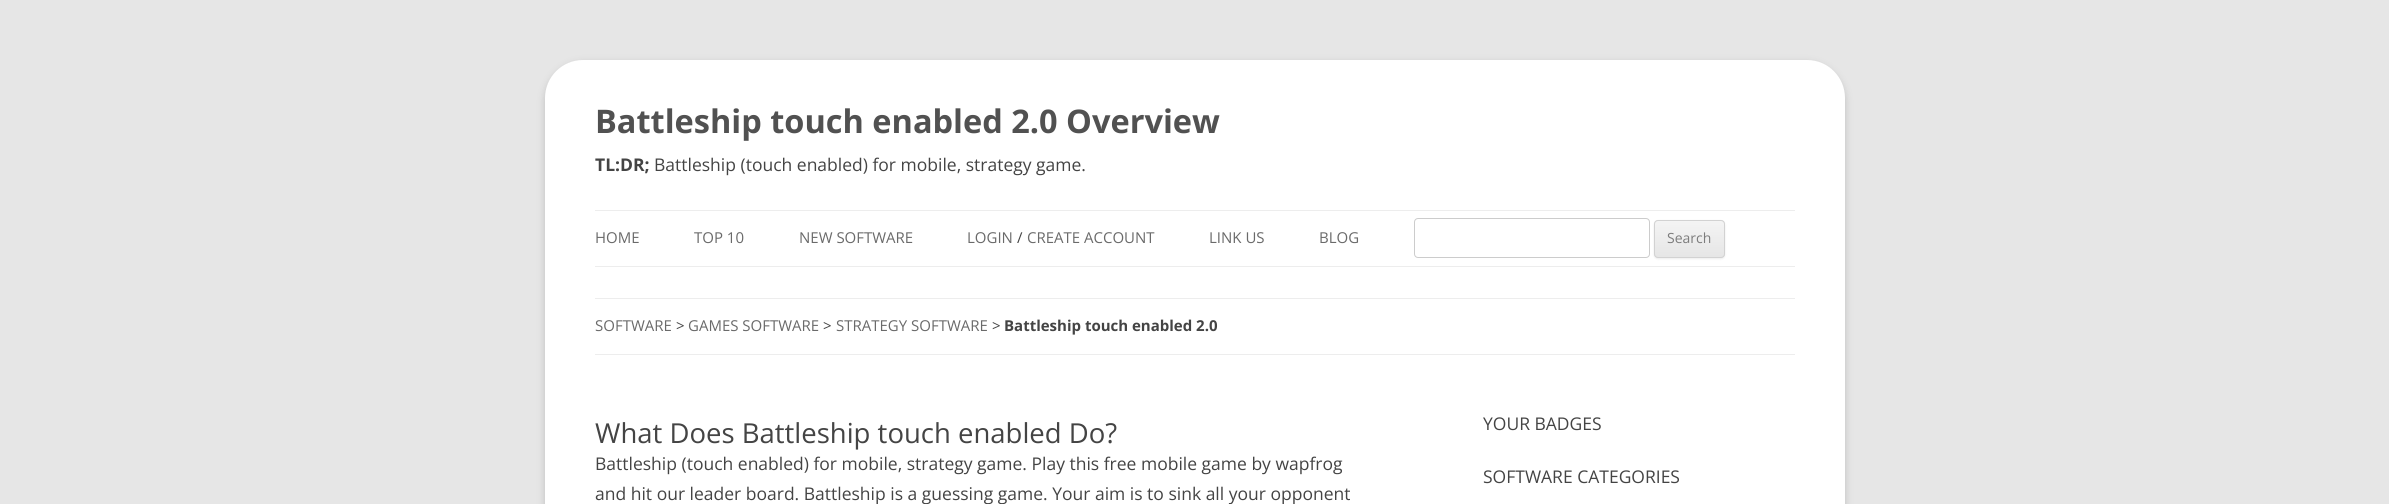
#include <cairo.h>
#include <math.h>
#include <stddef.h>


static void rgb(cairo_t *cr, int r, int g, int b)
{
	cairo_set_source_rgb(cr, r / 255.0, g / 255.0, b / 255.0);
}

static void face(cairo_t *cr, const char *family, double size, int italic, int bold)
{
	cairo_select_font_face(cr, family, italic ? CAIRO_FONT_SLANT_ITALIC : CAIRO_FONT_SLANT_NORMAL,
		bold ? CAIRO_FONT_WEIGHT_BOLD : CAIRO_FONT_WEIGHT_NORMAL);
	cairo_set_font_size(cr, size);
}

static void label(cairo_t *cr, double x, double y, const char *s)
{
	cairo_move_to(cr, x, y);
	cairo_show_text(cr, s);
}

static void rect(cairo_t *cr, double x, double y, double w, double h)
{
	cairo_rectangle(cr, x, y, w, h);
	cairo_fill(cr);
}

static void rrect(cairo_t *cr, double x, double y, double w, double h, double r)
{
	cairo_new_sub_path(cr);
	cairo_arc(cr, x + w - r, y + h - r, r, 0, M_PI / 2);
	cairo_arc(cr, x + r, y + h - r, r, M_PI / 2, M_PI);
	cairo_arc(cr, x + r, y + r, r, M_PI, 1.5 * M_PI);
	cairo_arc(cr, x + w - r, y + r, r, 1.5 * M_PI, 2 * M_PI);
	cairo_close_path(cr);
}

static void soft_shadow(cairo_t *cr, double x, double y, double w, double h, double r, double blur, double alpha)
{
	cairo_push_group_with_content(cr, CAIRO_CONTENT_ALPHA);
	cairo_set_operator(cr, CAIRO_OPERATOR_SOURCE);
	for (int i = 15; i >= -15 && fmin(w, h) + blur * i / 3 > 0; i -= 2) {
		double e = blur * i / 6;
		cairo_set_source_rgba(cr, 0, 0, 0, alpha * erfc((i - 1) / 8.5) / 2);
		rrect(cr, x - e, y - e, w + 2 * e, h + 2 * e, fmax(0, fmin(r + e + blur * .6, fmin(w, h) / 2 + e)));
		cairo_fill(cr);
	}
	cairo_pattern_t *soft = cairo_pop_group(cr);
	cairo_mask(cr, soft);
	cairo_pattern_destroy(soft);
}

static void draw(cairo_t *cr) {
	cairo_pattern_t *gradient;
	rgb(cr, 230, 230, 230);
	cairo_paint(cr);
	rgb(cr, 100, 100, 100);
	soft_shadow(cr, 545, 63, 1300, 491, 38, 4, 0.3);
	rgb(cr, 255, 255, 255);
	rrect(cr, 545, 60, 1300, 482, 38);
	cairo_fill(cr);
	face(cr, "Open Sans", 32.5, 0, 1);
	rgb(cr, 81, 81, 81);
	label(cr, 595, 133, "Battleship touch enabled 2.0 Overview");
	face(cr, "Open Sans", 17.5, 0, 1);
	rgb(cr, 68, 68, 68);
	label(cr, 595, 171, "TL:DR;");
	face(cr, "Open Sans", 17.5, 0, 0);
	label(cr, 654, 171, "Battleship (touch enabled) for mobile, strategy game.");
	rgb(cr, 237, 237, 237);
	rect(cr, 595, 210, 1200, 1);
	rect(cr, 595, 266, 1200, 1);
	face(cr, "Open Sans", 15, 0, 0);
	rgb(cr, 106, 106, 106);
	label(cr, 595, 243, "HOME");
	label(cr, 694, 243, "TOP 10");
	label(cr, 799, 243, "NEW SOFTWARE");
	label(cr, 967, 243, "LOGIN");
	rgb(cr, 68, 68, 68);
	label(cr, 1017, 243, "/");
	rgb(cr, 106, 106, 106);
	label(cr, 1027, 243, "CREATE ACCOUNT");
	label(cr, 1209, 243, "LINK US");
	label(cr, 1319, 243, "BLOG");
	rrect(cr, 1414.5, 218.5, 235, 39, 3.5);
	rgb(cr, 204, 204, 204);
	cairo_set_line_width(cr, 1);
	cairo_stroke(cr);
	rgb(cr, 64, 64, 64);
	soft_shadow(cr, 1654, 221, 71, 38, 4, 1, 0.1);
	rgb(cr, 230, 230, 230);
	rrect(cr, 1654, 220, 71, 38, 4);
	cairo_fill(cr);
	cairo_save(cr);
	rrect(cr, 1654, 220, 71, 38, 4);
	cairo_clip(cr);
	gradient = cairo_pattern_create_linear(1689, 221, 1689, 256);
	cairo_pattern_add_color_stop_rgba(gradient, 0, 0.957, 0.957, 0.957, 1);
	cairo_pattern_add_color_stop_rgba(gradient, 1, 0.902, 0.902, 0.902, 1);
	cairo_set_source(cr, gradient);
	cairo_pattern_destroy(gradient);
	rect(cr, 1654, 221, 71, 35);
	cairo_restore(cr);
	rrect(cr, 1654.5, 220.5, 70, 37, 3.5);
	rgb(cr, 210, 210, 210);
	cairo_stroke(cr);
	face(cr, "Open Sans", 14, 0, 0);
	rgb(cr, 124, 124, 124);
	label(cr, 1667, 243, "Search");
	rgb(cr, 237, 237, 237);
	rect(cr, 595, 298, 1200, 1);
	rect(cr, 595, 354, 1200, 1);
	face(cr, "Open Sans", 15, 0, 0);
	rgb(cr, 106, 106, 106);
	label(cr, 595, 331, "SOFTWARE");
	rgb(cr, 68, 68, 68);
	label(cr, 676, 331, ">");
	rgb(cr, 106, 106, 106);
	label(cr, 688, 331, "GAMES SOFTWARE");
	rgb(cr, 68, 68, 68);
	label(cr, 823, 331, ">");
	rgb(cr, 106, 106, 106);
	label(cr, 836, 331, "STRATEGY SOFTWARE");
	rgb(cr, 68, 68, 68);
	label(cr, 992, 331, ">");
	face(cr, "Open Sans", 15, 0, 1);
	label(cr, 1004, 331, "Battleship touch enabled 2.0");
	face(cr, "Open Sans", 27.5, 0, 0);
	label(cr, 595, 443, "What Does Battleship touch enabled Do?");
	face(cr, "Open Sans", 17.5, 0, 0);
	label(cr, 595, 470, "Battleship (touch enabled) for mobile, strategy game. Play this free mobile game by wapfrog");
	label(cr, 595, 500, "and hit our leader board. Battleship is a guessing game. Your aim is to sink all your opponent");
	label(cr, 1483, 430, "YOUR BADGES");
	label(cr, 1483, 483, "SOFTWARE CATEGORIES");
}

int main(void) {
	cairo_surface_t *surface = cairo_image_surface_create(CAIRO_FORMAT_RGB24, 2389, 504);
	cairo_t *cr = cairo_create(surface);
	cairo_font_options_t *options = cairo_font_options_create();
	cairo_font_options_set_hint_metrics(options, CAIRO_HINT_METRICS_OFF);
	cairo_font_options_set_hint_style(options, CAIRO_HINT_STYLE_NONE);
	cairo_set_font_options(cr, options);
	cairo_set_miter_limit(cr, 4);
	draw(cr);
	cairo_surface_write_to_png(surface, "render.png");
	cairo_font_options_destroy(options);
	cairo_destroy(cr);
	cairo_surface_destroy(surface);
	return 0;
}
